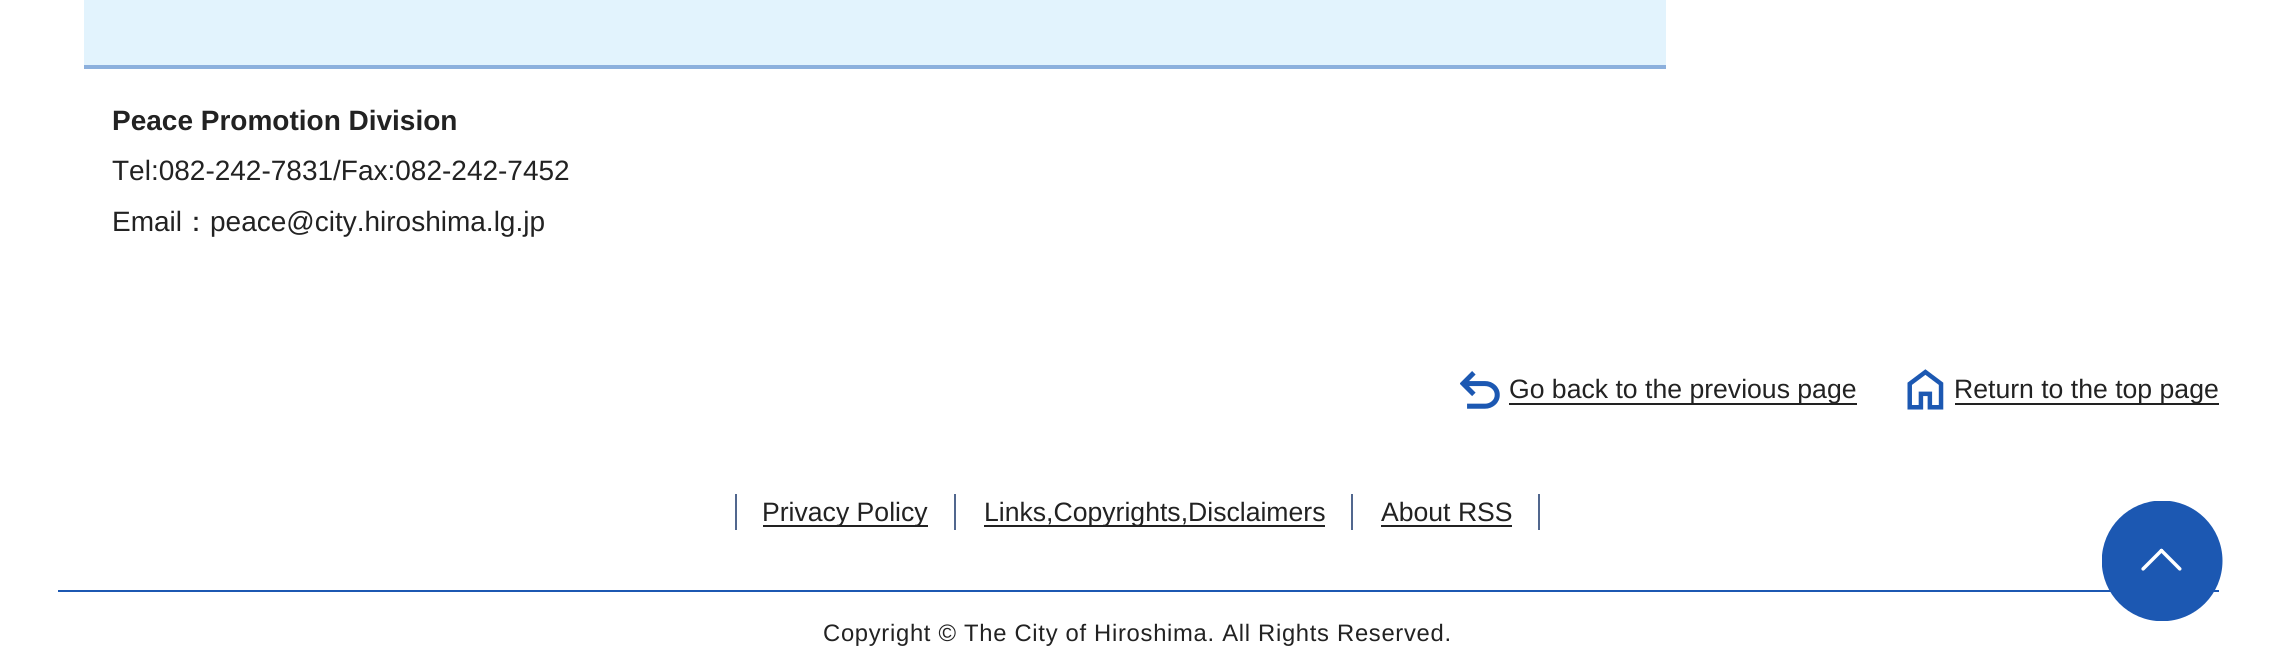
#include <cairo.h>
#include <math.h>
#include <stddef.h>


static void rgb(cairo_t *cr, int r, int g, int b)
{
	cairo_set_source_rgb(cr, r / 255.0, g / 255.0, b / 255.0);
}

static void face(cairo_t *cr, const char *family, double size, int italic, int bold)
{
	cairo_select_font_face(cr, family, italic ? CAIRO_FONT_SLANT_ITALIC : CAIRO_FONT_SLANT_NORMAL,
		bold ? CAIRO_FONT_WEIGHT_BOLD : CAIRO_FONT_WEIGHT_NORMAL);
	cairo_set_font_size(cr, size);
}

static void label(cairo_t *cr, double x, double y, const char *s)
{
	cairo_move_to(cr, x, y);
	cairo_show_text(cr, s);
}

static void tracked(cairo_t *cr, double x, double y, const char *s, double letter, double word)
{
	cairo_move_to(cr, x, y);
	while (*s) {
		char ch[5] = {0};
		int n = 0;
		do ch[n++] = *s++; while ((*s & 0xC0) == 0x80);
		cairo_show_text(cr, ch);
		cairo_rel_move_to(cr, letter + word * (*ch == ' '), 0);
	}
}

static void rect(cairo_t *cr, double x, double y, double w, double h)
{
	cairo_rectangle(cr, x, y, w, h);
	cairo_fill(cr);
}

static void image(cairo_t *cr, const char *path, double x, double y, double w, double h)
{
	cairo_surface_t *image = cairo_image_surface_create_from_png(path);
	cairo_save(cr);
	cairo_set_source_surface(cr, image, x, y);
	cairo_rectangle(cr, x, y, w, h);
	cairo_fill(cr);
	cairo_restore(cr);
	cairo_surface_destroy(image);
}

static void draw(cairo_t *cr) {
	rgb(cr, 255, 255, 255);
	cairo_paint(cr);
	rgb(cr, 226, 243, 253);
	rect(cr, 84, 0, 1582, 65);
	rgb(cr, 140, 176, 221);
	rect(cr, 84, 65, 1582, 4);
	face(cr, "Liberation Sans", 28, 0, 1);
	rgb(cr, 34, 34, 34);
	label(cr, 112, 130, "Peace Promotion Division");
	face(cr, "Liberation Sans", 28, 0, 0);
	label(cr, 112, 180, "Tel:082-242-7831/Fax:082-242-7452");
	label(cr, 112, 231, "Email");
	face(cr, "WenQuanYi Zen Hei Medium", 28, 0, 0);
	label(cr, 182, 231, "：");
	face(cr, "Liberation Sans", 28, 0, 0);
	label(cr, 210, 231, "peace@city.hiroshima.lg.jp");
	image(cr, "image0.png", 1460, 371, 40, 38);
	rect(cr, 1509, 403, 348, 2);
	face(cr, "Liberation Sans", 26.6, 0, 0);
	label(cr, 1509, 398, "Go back to the previous page");
	image(cr, "image1.png", 1907, 369, 37, 41);
	rect(cr, 1955, 403, 264, 2);
	label(cr, 1954, 398, "Return to the top page");
	rgb(cr, 28, 88, 178);
	rect(cr, 58, 590, 2161, 2);
	image(cr, "image2.png", 2102, 501, 121, 120);
	rgb(cr, 81, 103, 142);
	rect(cr, 735, 494, 2, 36);
	rgb(cr, 34, 34, 34);
	rect(cr, 763, 525, 165, 2);
	label(cr, 762, 521, "Privacy Policy");
	rgb(cr, 81, 103, 142);
	rect(cr, 954, 494, 2, 36);
	rgb(cr, 34, 34, 34);
	rect(cr, 984, 525, 341, 2);
	label(cr, 984, 521, "Links,Copyrights,Disclaimers");
	rgb(cr, 81, 103, 142);
	rect(cr, 1351, 494, 2, 36);
	rgb(cr, 34, 34, 34);
	label(cr, 1381, 521, "About RSS");
	rect(cr, 1381, 525, 131, 2);
	rgb(cr, 81, 103, 142);
	rect(cr, 1538, 494, 2, 36);
	face(cr, "Liberation Sans", 23.8, 0, 0);
	rgb(cr, 34, 34, 34);
	tracked(cr, 823, 641, "Copyright © The City of Hiroshima. All Rights Reserved.", 0.7, 0);
}

int main(void) {
	cairo_surface_t *surface = cairo_image_surface_create(CAIRO_FORMAT_RGB24, 2274, 664);
	cairo_t *cr = cairo_create(surface);
	cairo_font_options_t *options = cairo_font_options_create();
	cairo_font_options_set_hint_metrics(options, CAIRO_HINT_METRICS_OFF);
	cairo_font_options_set_hint_style(options, CAIRO_HINT_STYLE_NONE);
	cairo_set_font_options(cr, options);
	cairo_set_miter_limit(cr, 4);
	draw(cr);
	cairo_surface_write_to_png(surface, "render.png");
	cairo_font_options_destroy(options);
	cairo_destroy(cr);
	cairo_surface_destroy(surface);
	return 0;
}
